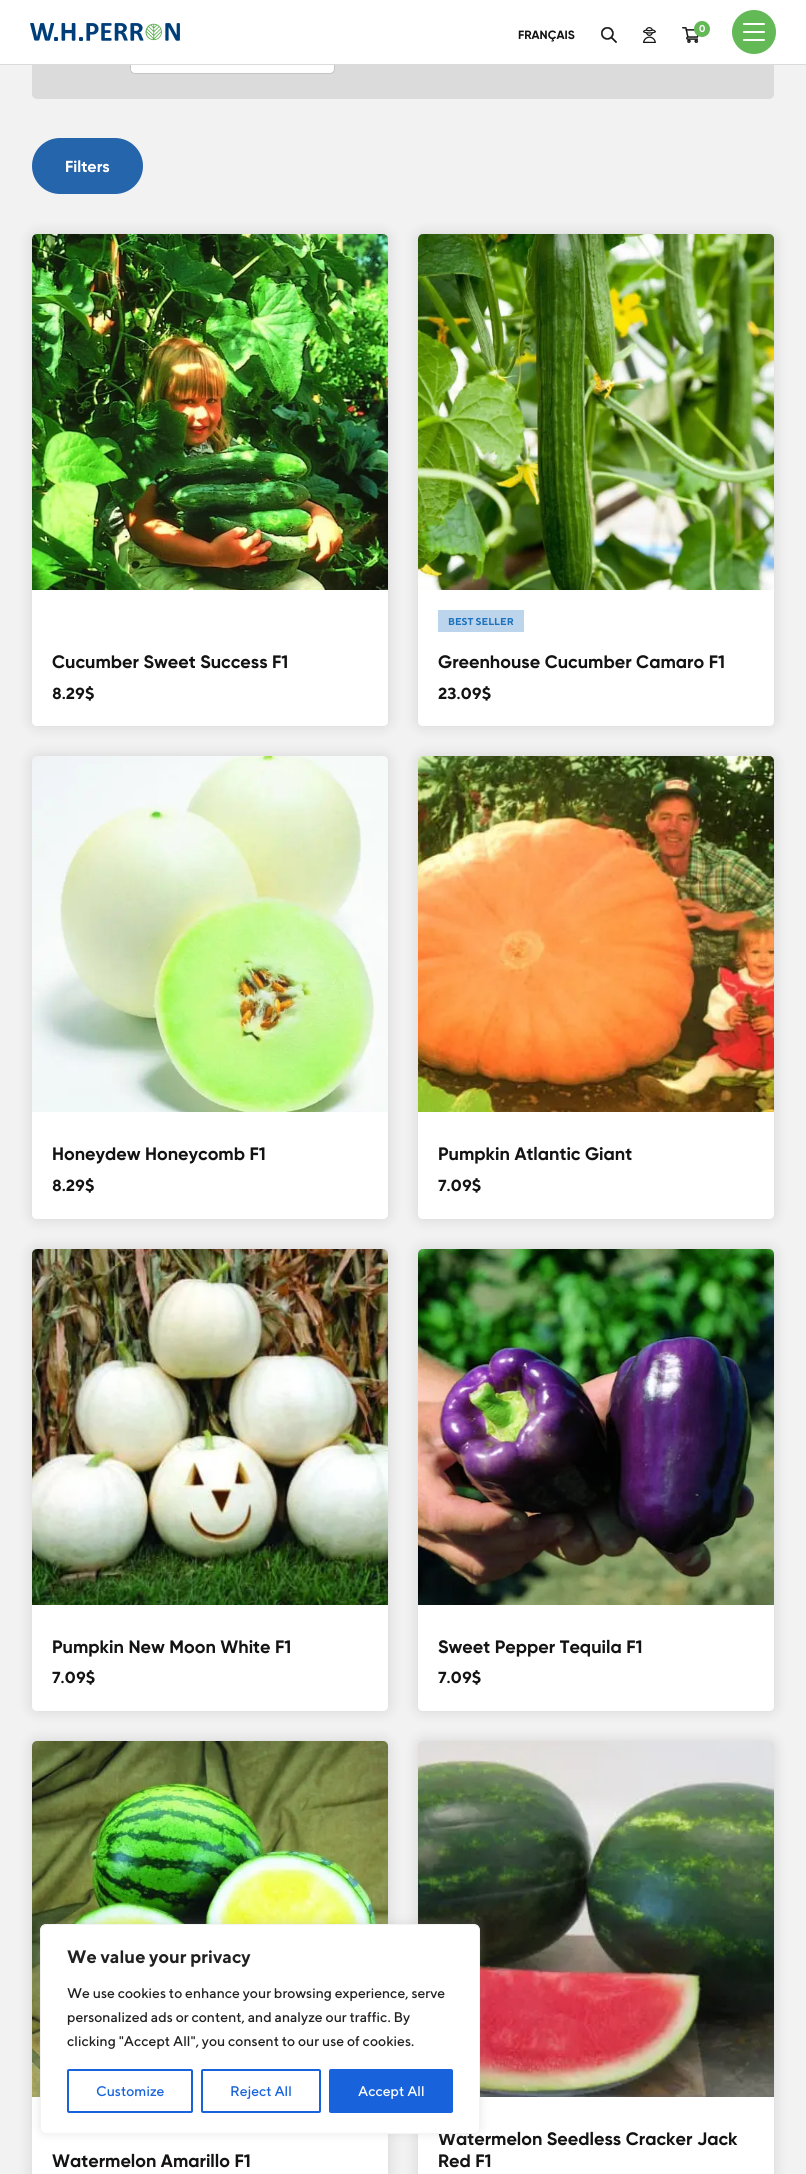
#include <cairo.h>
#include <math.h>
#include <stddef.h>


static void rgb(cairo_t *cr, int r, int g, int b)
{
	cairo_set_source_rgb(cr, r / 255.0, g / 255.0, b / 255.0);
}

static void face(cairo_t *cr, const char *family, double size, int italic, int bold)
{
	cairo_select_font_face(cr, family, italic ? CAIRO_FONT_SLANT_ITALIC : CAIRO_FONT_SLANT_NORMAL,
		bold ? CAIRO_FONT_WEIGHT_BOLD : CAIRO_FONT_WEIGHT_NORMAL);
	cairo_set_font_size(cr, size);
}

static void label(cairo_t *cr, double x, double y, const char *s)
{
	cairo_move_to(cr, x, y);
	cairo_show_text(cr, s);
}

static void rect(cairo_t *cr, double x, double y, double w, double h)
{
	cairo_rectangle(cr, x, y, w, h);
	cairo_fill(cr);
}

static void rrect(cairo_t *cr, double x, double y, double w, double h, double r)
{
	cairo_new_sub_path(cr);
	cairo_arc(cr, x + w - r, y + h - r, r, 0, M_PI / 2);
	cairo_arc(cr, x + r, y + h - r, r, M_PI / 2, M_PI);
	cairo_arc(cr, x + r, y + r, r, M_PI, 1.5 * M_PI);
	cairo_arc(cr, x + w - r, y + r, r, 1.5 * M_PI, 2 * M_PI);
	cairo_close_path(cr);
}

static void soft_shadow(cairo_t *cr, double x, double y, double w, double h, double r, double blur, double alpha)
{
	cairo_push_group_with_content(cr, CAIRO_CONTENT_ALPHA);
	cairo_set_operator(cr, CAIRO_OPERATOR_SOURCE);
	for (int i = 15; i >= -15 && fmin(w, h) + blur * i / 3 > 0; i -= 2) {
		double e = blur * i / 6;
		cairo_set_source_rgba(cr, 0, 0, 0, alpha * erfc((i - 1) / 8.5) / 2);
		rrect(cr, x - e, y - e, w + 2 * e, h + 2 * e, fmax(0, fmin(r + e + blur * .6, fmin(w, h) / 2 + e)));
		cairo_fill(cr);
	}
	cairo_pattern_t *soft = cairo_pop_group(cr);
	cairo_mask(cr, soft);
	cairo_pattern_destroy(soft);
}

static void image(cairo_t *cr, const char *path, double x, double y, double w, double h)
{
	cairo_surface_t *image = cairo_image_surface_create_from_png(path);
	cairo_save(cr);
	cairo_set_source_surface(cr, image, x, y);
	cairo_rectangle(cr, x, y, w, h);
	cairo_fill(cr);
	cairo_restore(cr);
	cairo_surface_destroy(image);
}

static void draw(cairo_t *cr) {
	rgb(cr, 242, 242, 242);
	cairo_paint(cr);
	rgb(cr, 219, 219, 219);
	rrect(cr, 32, -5, 742, 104, 5);
	cairo_fill(cr);
	rgb(cr, 255, 255, 255);
	rrect(cr, 130.5, 21.5, 204, 52, 4.5);
	cairo_fill_preserve(cr);
	rgb(cr, 197, 197, 197);
	cairo_set_line_width(cr, 1);
	cairo_stroke(cr);
	rgb(cr, 219, 219, 219);
	rect(cr, 0, 64, 806, 1);
	rgb(cr, 255, 255, 255);
	rect(cr, 0, 0, 806, 64);
	image(cr, "image0.png", 30, 23, 150, 18);
	rgb(cr, 99, 185, 86);
	cairo_arc(cr, 754, 32, 22, 0, 2 * M_PI);
	cairo_fill(cr);
	rgb(cr, 255, 255, 255);
	rrect(cr, 743, 23, 22, 2, 1);
	cairo_fill(cr);
	rrect(cr, 743, 31, 22, 2, 1);
	cairo_fill(cr);
	rrect(cr, 743, 39, 22, 2, 1);
	cairo_fill(cr);
	face(cr, "Gilroy", 12, 0, 1);
	rgb(cr, 19, 19, 19);
	label(cr, 518, 39, "FRANÇAIS");
	image(cr, "image1.png", 601, 27, 16, 16);
	image(cr, "image2.png", 643, 27, 13, 16);
	image(cr, "image3.png", 682, 27, 17, 16);
	rgb(cr, 99, 185, 86);
	cairo_arc(cr, 702, 29, 8, 0, 2 * M_PI);
	cairo_fill(cr);
	face(cr, "Gilroy", 10, 0, 1);
	rgb(cr, 255, 255, 255);
	label(cr, 699, 32, "0");
	rgb(cr, 37, 101, 172);
	rrect(cr, 32, 138, 111, 56, 28);
	cairo_fill(cr);
	face(cr, "Gilroy", 16, 0, 1);
	rgb(cr, 255, 255, 255);
	label(cr, 65, 172, "Filters");
	rgb(cr, 0, 0, 0);
	soft_shadow(cr, 32, 234, 356, 492, 5, 7, 0.13);
	image(cr, "image4.png", 32, 234, 356, 356);
	rgb(cr, 255, 255, 255);
	cairo_new_path(cr);
	cairo_move_to(cr, 32, 590);
	cairo_line_to(cr, 388, 590);
	cairo_line_to(cr, 388, 721);
	cairo_curve_to(cr, 388, 724, 386, 726, 383, 726);
	cairo_line_to(cr, 37, 726);
	cairo_curve_to(cr, 34, 726, 32, 724, 32, 721);
	cairo_close_path(cr);
	cairo_fill(cr);
	face(cr, "Gilroy", 18, 0, 1);
	rgb(cr, 19, 19, 19);
	label(cr, 52, 668, "Cucumber Sweet Success F1");
	face(cr, "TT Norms", 16, 0, 1);
	label(cr, 52, 699, "8.29$");
	rgb(cr, 0, 0, 0);
	soft_shadow(cr, 418, 234, 356, 492, 5, 7, 0.13);
	image(cr, "image5.png", 418, 234, 356, 356);
	rgb(cr, 255, 255, 255);
	cairo_new_path(cr);
	cairo_move_to(cr, 418, 590);
	cairo_line_to(cr, 774, 590);
	cairo_line_to(cr, 774, 721);
	cairo_curve_to(cr, 774, 724, 772, 726, 769, 726);
	cairo_line_to(cr, 423, 726);
	cairo_curve_to(cr, 420, 726, 418, 724, 418, 721);
	cairo_close_path(cr);
	cairo_fill(cr);
	rgb(cr, 188, 213, 236);
	rect(cr, 438, 610, 86, 22);
	face(cr, "TT Norms", 10, 0, 1);
	rgb(cr, 30, 115, 190);
	label(cr, 448, 625, "BEST SELLER");
	face(cr, "Gilroy", 18, 0, 1);
	rgb(cr, 19, 19, 19);
	label(cr, 438, 668, "Greenhouse Cucumber Camaro F1");
	face(cr, "TT Norms", 16, 0, 1);
	label(cr, 438, 699, "23.09$");
	rgb(cr, 0, 0, 0);
	soft_shadow(cr, 32, 756, 356, 463, 5, 7, 0.13);
	image(cr, "image6.png", 32, 756, 356, 356);
	rgb(cr, 255, 255, 255);
	cairo_new_path(cr);
	cairo_move_to(cr, 32, 1112);
	cairo_line_to(cr, 388, 1112);
	cairo_line_to(cr, 388, 1214);
	cairo_curve_to(cr, 388, 1217, 386, 1219, 383, 1219);
	cairo_line_to(cr, 37, 1219);
	cairo_curve_to(cr, 34, 1219, 32, 1217, 32, 1214);
	cairo_close_path(cr);
	cairo_fill(cr);
	face(cr, "Gilroy", 18, 0, 1);
	rgb(cr, 19, 19, 19);
	label(cr, 52, 1160, "Honeydew Honeycomb F1");
	face(cr, "TT Norms", 16, 0, 1);
	label(cr, 52, 1191, "8.29$");
	rgb(cr, 0, 0, 0);
	soft_shadow(cr, 418, 756, 356, 463, 5, 7, 0.13);
	image(cr, "image7.png", 418, 756, 356, 356);
	rgb(cr, 255, 255, 255);
	cairo_new_path(cr);
	cairo_move_to(cr, 418, 1112);
	cairo_line_to(cr, 774, 1112);
	cairo_line_to(cr, 774, 1214);
	cairo_curve_to(cr, 774, 1217, 772, 1219, 769, 1219);
	cairo_line_to(cr, 423, 1219);
	cairo_curve_to(cr, 420, 1219, 418, 1217, 418, 1214);
	cairo_close_path(cr);
	cairo_fill(cr);
	face(cr, "Gilroy", 18, 0, 1);
	rgb(cr, 19, 19, 19);
	label(cr, 438, 1160, "Pumpkin Atlantic Giant");
	face(cr, "TT Norms", 16, 0, 1);
	label(cr, 438, 1191, "7.09$");
	rgb(cr, 0, 0, 0);
	soft_shadow(cr, 32, 1249, 356, 462, 5, 7, 0.13);
	image(cr, "image8.png", 32, 1249, 356, 356);
	rgb(cr, 255, 255, 255);
	cairo_new_path(cr);
	cairo_move_to(cr, 32, 1605);
	cairo_line_to(cr, 388, 1605);
	cairo_line_to(cr, 388, 1706);
	cairo_curve_to(cr, 388, 1709, 386, 1711, 383, 1711);
	cairo_line_to(cr, 37, 1711);
	cairo_curve_to(cr, 34, 1711, 32, 1709, 32, 1706);
	cairo_close_path(cr);
	cairo_fill(cr);
	face(cr, "Gilroy", 18, 0, 1);
	rgb(cr, 19, 19, 19);
	label(cr, 52, 1653, "Pumpkin New Moon White F1");
	face(cr, "TT Norms", 16, 0, 1);
	label(cr, 52, 1683, "7.09$");
	rgb(cr, 0, 0, 0);
	soft_shadow(cr, 418, 1249, 356, 462, 5, 7, 0.13);
	image(cr, "image9.png", 418, 1249, 356, 356);
	rgb(cr, 255, 255, 255);
	cairo_new_path(cr);
	cairo_move_to(cr, 418, 1605);
	cairo_line_to(cr, 774, 1605);
	cairo_line_to(cr, 774, 1706);
	cairo_curve_to(cr, 774, 1709, 772, 1711, 769, 1711);
	cairo_line_to(cr, 423, 1711);
	cairo_curve_to(cr, 420, 1711, 418, 1709, 418, 1706);
	cairo_close_path(cr);
	cairo_fill(cr);
	face(cr, "Gilroy", 18, 0, 1);
	rgb(cr, 19, 19, 19);
	label(cr, 438, 1653, "Sweet Pepper Tequila F1");
	face(cr, "TT Norms", 16, 0, 1);
	label(cr, 438, 1683, "7.09$");
	rgb(cr, 0, 0, 0);
	soft_shadow(cr, 32, 1741, 356, 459, 5, 7, 0.13);
	image(cr, "image10.png", 32, 1741, 356, 356);
	rgb(cr, 255, 255, 255);
	rect(cr, 32, 2097, 356, 77);
	face(cr, "Gilroy", 18, 0, 1);
	rgb(cr, 19, 19, 19);
	label(cr, 52, 2167, "Watermelon Amarillo F1");
	rgb(cr, 0, 0, 0);
	soft_shadow(cr, 418, 1741, 356, 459, 5, 7, 0.13);
	image(cr, "image11.png", 418, 1741, 356, 356);
	rgb(cr, 255, 255, 255);
	rect(cr, 418, 2097, 356, 77);
	rgb(cr, 19, 19, 19);
	label(cr, 438, 2145, "Watermelon Seedless Cracker Jack");
	label(cr, 438, 2167, "Red F1");
	rgb(cr, 172, 171, 171);
	soft_shadow(cr, 40, 1923, 440, 210, 6, 5, 0.3);
	rgb(cr, 255, 255, 255);
	rrect(cr, 40.5, 1924.5, 439, 209, 5.5);
	cairo_fill_preserve(cr);
	rgb(cr, 244, 244, 244);
	cairo_stroke(cr);
	face(cr, "TT Norms", 18, 0, 1);
	rgb(cr, 33, 33, 33);
	label(cr, 67, 1963, "We value your privacy");
	face(cr, "TT Norms Medium", 14, 0, 0);
	label(cr, 67, 1998, "We use cookies to enhance your browsing experience, serve");
	label(cr, 67, 2022, "personalized ads or content, and analyze our traffic. By");
	label(cr, 67, 2046, "clicking \"Accept All\", you consent to our use of cookies.");
	rrect(cr, 68, 2070, 124, 42, 1);
	rgb(cr, 24, 99, 220);
	cairo_set_line_width(cr, 2);
	cairo_stroke(cr);
	label(cr, 96, 2096, "Customize");
	rrect(cr, 202, 2070, 118, 42, 1);
	cairo_stroke(cr);
	label(cr, 230, 2096, "Reject All");
	rrect(cr, 330, 2070, 122, 42, 1);
	cairo_fill_preserve(cr);
	cairo_stroke(cr);
	rgb(cr, 255, 255, 255);
	label(cr, 358, 2096, "Accept All");
}

int main(void) {
	cairo_surface_t *surface = cairo_image_surface_create(CAIRO_FORMAT_RGB24, 806, 2174);
	cairo_t *cr = cairo_create(surface);
	cairo_font_options_t *options = cairo_font_options_create();
	cairo_font_options_set_hint_metrics(options, CAIRO_HINT_METRICS_OFF);
	cairo_font_options_set_hint_style(options, CAIRO_HINT_STYLE_NONE);
	cairo_set_font_options(cr, options);
	cairo_set_miter_limit(cr, 4);
	draw(cr);
	cairo_surface_write_to_png(surface, "render.png");
	cairo_font_options_destroy(options);
	cairo_destroy(cr);
	cairo_surface_destroy(surface);
	return 0;
}
